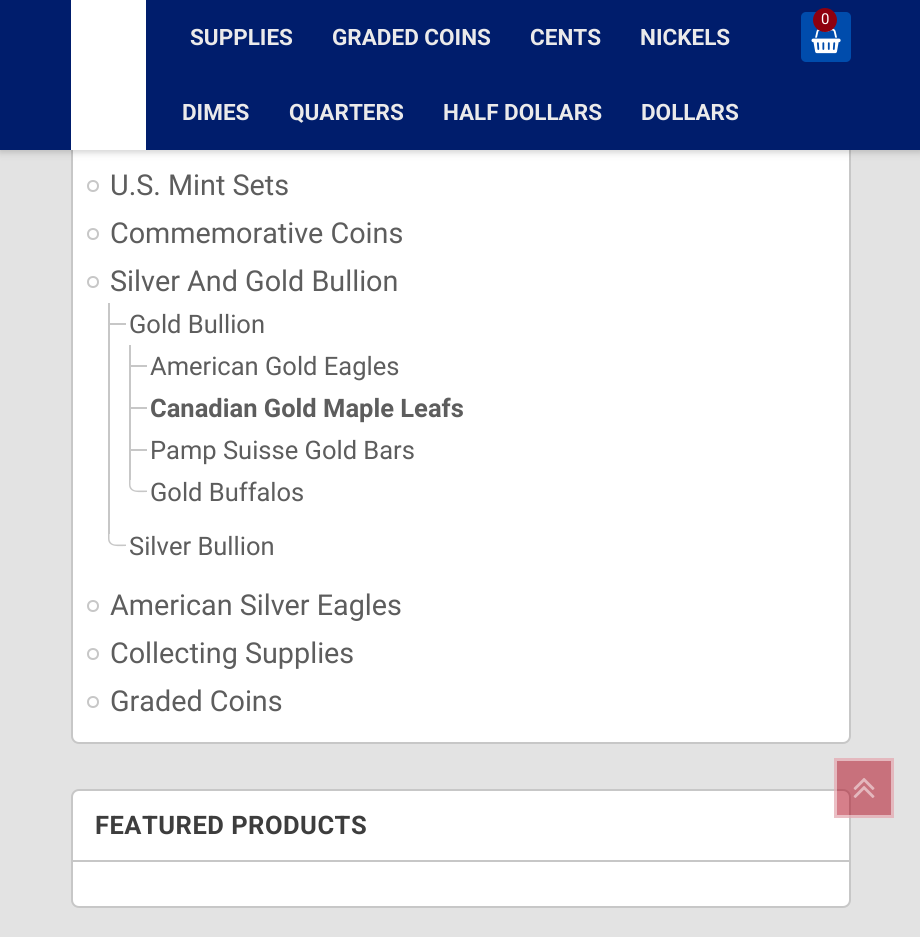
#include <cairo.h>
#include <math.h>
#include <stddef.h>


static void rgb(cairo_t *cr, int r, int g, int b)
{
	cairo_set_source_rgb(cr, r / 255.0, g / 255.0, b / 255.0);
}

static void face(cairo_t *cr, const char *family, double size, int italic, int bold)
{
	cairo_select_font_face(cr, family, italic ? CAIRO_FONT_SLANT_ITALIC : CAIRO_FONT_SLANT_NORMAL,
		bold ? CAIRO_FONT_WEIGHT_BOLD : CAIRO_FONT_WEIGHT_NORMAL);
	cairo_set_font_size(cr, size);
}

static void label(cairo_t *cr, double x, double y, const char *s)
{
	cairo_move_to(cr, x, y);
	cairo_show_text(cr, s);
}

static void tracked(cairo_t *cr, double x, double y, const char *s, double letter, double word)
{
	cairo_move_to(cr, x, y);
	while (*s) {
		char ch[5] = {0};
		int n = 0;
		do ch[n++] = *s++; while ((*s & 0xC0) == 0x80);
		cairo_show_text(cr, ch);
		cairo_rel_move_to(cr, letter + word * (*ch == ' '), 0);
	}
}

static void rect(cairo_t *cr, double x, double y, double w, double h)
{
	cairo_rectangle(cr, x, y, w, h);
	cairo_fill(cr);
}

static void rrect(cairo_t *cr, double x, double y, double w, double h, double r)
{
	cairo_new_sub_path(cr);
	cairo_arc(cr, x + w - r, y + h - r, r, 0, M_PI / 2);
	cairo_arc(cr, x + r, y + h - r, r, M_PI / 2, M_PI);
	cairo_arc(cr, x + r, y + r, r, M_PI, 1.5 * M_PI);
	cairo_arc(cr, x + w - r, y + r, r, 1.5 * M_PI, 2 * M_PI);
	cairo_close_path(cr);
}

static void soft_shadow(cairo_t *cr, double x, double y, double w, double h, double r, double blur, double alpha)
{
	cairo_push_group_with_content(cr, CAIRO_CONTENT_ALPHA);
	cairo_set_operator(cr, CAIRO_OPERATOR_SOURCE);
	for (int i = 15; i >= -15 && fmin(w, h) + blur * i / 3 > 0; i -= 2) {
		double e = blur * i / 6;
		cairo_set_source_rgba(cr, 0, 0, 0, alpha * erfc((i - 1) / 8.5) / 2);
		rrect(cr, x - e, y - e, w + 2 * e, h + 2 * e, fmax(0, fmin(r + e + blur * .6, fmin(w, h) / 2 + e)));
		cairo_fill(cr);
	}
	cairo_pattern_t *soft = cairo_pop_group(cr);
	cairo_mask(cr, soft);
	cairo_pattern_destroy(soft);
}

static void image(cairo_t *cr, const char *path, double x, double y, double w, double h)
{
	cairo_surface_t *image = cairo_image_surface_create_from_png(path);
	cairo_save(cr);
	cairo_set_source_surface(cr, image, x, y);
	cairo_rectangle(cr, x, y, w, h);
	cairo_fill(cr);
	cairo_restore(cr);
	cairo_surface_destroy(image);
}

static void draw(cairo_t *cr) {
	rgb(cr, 227, 227, 227);
	cairo_paint(cr);
	rgb(cr, 255, 255, 255);
	rrect(cr, 72, -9, 778, 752, 7);
	cairo_fill_preserve(cr);
	rgb(cr, 199, 199, 199);
	cairo_stroke(cr);
	rgb(cr, 0, 0, 0);
	soft_shadow(cr, 0, 2, 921, 150, 0, 4, 0.2);
	rgb(cr, 0, 29, 108);
	rect(cr, 0, 0, 920, 150);
	rgb(cr, 255, 255, 255);
	rect(cr, 71, 0, 75, 150);
	rgb(cr, 0, 76, 172);
	rrect(cr, 801, 12, 50, 50, 5);
	cairo_fill(cr);
	image(cr, "image0.png", 811, 28, 30, 26);
	rgb(cr, 142, 0, 14);
	cairo_arc(cr, 825, 20, 12, 0, 2 * M_PI);
	cairo_fill(cr);
	face(cr, "Roboto", 15, 0, 0);
	rgb(cr, 255, 255, 255);
	label(cr, 821, 24, "0");
	face(cr, "Roboto", 22.5, 0, 1);
	rgb(cr, 235, 234, 234);
	label(cr, 190, 45, "SUPPLIES");
	label(cr, 332, 45, "GRADED COINS");
	label(cr, 530, 45, "CENTS");
	label(cr, 640, 45, "NICKELS");
	label(cr, 182, 120, "DIMES");
	label(cr, 289, 120, "QUARTERS");
	label(cr, 443, 120, "HALF DOLLARS");
	label(cr, 641, 120, "DOLLARS");
	cairo_new_path(cr);
	cairo_arc(cr, 93, 186, 5, 0, 2 * M_PI);
	rgb(cr, 199, 199, 199);
	cairo_stroke(cr);
	face(cr, "Roboto", 28.75, 0, 0);
	rgb(cr, 93, 93, 93);
	label(cr, 110, 195, "U.S. Mint Sets");
	cairo_new_path(cr);
	cairo_arc(cr, 93, 234, 5, 0, 2 * M_PI);
	rgb(cr, 199, 199, 199);
	cairo_stroke(cr);
	rgb(cr, 93, 93, 93);
	label(cr, 110, 243, "Commemorative Coins");
	cairo_new_path(cr);
	cairo_arc(cr, 93, 282, 5, 0, 2 * M_PI);
	rgb(cr, 199, 199, 199);
	cairo_stroke(cr);
	rgb(cr, 93, 93, 93);
	label(cr, 110, 291, "Silver And Gold Bullion");
	rgb(cr, 199, 199, 199);
	rect(cr, 108, 323, 18, 2);
	rect(cr, 108, 303, 2, 231);
	face(cr, "Roboto", 25.5, 0, 0);
	rgb(cr, 93, 93, 93);
	label(cr, 129, 333, "Gold Bullion");
	rgb(cr, 199, 199, 199);
	rect(cr, 129, 365, 18, 2);
	rect(cr, 129, 345, 2, 42);
	rgb(cr, 93, 93, 93);
	label(cr, 150, 375, "American Gold Eagles");
	rgb(cr, 199, 199, 199);
	rect(cr, 129, 407, 18, 2);
	rect(cr, 129, 387, 2, 42);
	face(cr, "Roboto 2", 25.5, 0, 1);
	rgb(cr, 93, 93, 93);
	label(cr, 150, 417, "Canadian Gold Maple Leafs");
	rgb(cr, 199, 199, 199);
	rect(cr, 129, 449, 18, 2);
	rect(cr, 129, 429, 2, 51);
	face(cr, "Roboto", 25.5, 0, 0);
	rgb(cr, 93, 93, 93);
	label(cr, 150, 459, "Pamp Suisse Gold Bars");
	rgb(cr, 199, 199, 199);
	cairo_set_fill_rule(cr, CAIRO_FILL_RULE_EVEN_ODD);
	cairo_new_path(cr);
	cairo_move_to(cr, 129, 471);
	cairo_line_to(cr, 147, 471);
	cairo_line_to(cr, 147, 492);
	cairo_curve_to(cr, 141, 492, 129, 494, 129, 484.5);
	cairo_close_path(cr);
	cairo_move_to(cr, 130.5, 471);
	cairo_line_to(cr, 147, 471);
	cairo_line_to(cr, 147, 490.5);
	cairo_line_to(cr, 136.5, 490.5);
	cairo_curve_to(cr, 133, 490.5, 130.5, 488, 130.5, 484.5);
	cairo_close_path(cr);
	cairo_fill(cr);
	rgb(cr, 93, 93, 93);
	label(cr, 150, 501, "Gold Buffalos");
	rgb(cr, 199, 199, 199);
	cairo_new_path(cr);
	cairo_move_to(cr, 108, 525);
	cairo_line_to(cr, 126, 525);
	cairo_line_to(cr, 126, 546);
	cairo_curve_to(cr, 120, 546, 108, 548, 108, 538.5);
	cairo_close_path(cr);
	cairo_move_to(cr, 109.5, 525);
	cairo_line_to(cr, 126, 525);
	cairo_line_to(cr, 126, 544.5);
	cairo_line_to(cr, 115.5, 544.5);
	cairo_curve_to(cr, 112, 544.5, 109.5, 542, 109.5, 538.5);
	cairo_close_path(cr);
	cairo_fill(cr);
	rgb(cr, 93, 93, 93);
	label(cr, 129, 555, "Silver Bullion");
	cairo_new_path(cr);
	cairo_arc(cr, 93, 606, 5, 0, 2 * M_PI);
	rgb(cr, 199, 199, 199);
	cairo_stroke(cr);
	face(cr, "Roboto", 28.75, 0, 0);
	rgb(cr, 93, 93, 93);
	label(cr, 110, 615, "American Silver Eagles");
	cairo_new_path(cr);
	cairo_arc(cr, 93, 654, 5, 0, 2 * M_PI);
	rgb(cr, 199, 199, 199);
	cairo_stroke(cr);
	rgb(cr, 93, 93, 93);
	label(cr, 110, 663, "Collecting Supplies");
	cairo_new_path(cr);
	cairo_arc(cr, 93, 702, 5, 0, 2 * M_PI);
	rgb(cr, 199, 199, 199);
	cairo_stroke(cr);
	rgb(cr, 93, 93, 93);
	label(cr, 110, 711, "Graded Coins");
	rgb(cr, 255, 255, 255);
	rrect(cr, 72, 790, 778, 117, 7);
	cairo_fill_preserve(cr);
	rgb(cr, 199, 199, 199);
	cairo_stroke(cr);
	rect(cr, 72, 860, 777, 2);
	face(cr, "Roboto", 25.5, 0, 1);
	rgb(cr, 61, 61, 61);
	tracked(cr, 95, 834, "FEATURED PRODUCTS", 0.5, 0);
	cairo_set_source_rgba(cr, 0.682, 0, 0.086, 0.5);
	rect(cr, 834, 758, 60, 60);
	cairo_rectangle(cr, 835.5, 759.5, 57, 57);
	cairo_set_source_rgba(cr, 1, 1, 1, 0.5);
	cairo_set_line_width(cr, 3);
	cairo_stroke(cr);
	image(cr, "image1.png", 853, 778, 22, 20);
}

int main(void) {
	cairo_surface_t *surface = cairo_image_surface_create(CAIRO_FORMAT_RGB24, 920, 937);
	cairo_t *cr = cairo_create(surface);
	cairo_font_options_t *options = cairo_font_options_create();
	cairo_font_options_set_hint_metrics(options, CAIRO_HINT_METRICS_OFF);
	cairo_font_options_set_hint_style(options, CAIRO_HINT_STYLE_NONE);
	cairo_set_font_options(cr, options);
	cairo_set_miter_limit(cr, 4);
	draw(cr);
	cairo_surface_write_to_png(surface, "render.png");
	cairo_font_options_destroy(options);
	cairo_destroy(cr);
	cairo_surface_destroy(surface);
	return 0;
}
